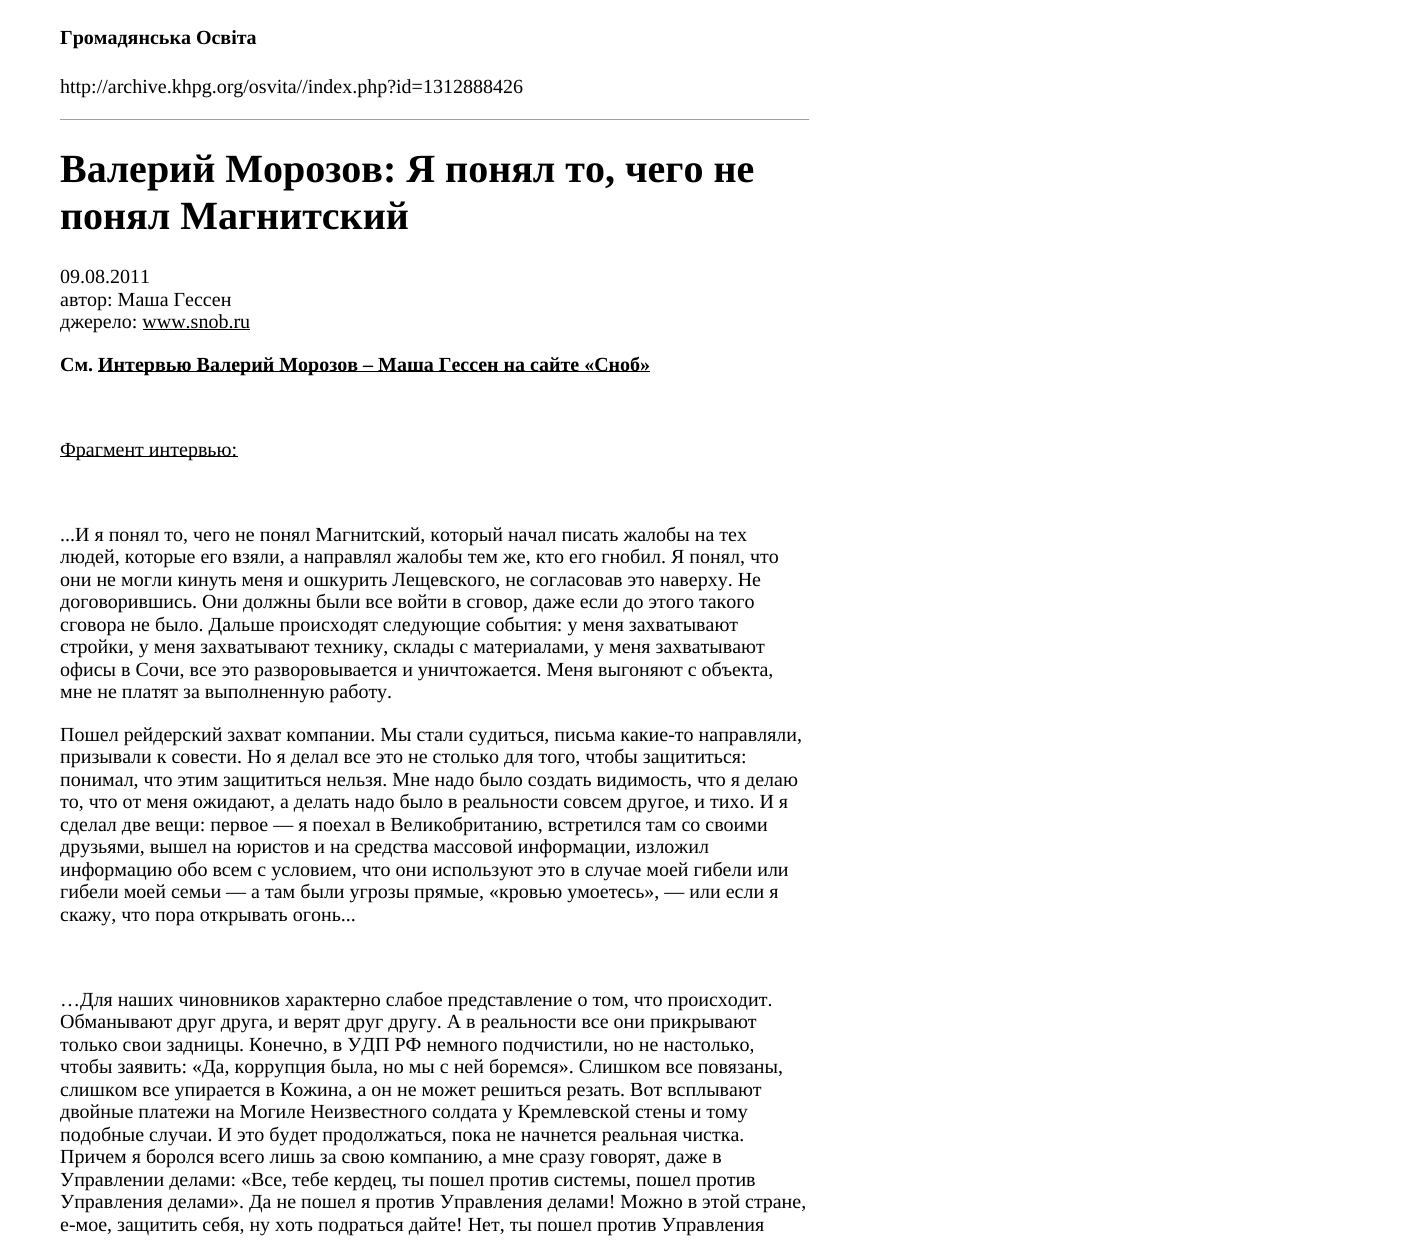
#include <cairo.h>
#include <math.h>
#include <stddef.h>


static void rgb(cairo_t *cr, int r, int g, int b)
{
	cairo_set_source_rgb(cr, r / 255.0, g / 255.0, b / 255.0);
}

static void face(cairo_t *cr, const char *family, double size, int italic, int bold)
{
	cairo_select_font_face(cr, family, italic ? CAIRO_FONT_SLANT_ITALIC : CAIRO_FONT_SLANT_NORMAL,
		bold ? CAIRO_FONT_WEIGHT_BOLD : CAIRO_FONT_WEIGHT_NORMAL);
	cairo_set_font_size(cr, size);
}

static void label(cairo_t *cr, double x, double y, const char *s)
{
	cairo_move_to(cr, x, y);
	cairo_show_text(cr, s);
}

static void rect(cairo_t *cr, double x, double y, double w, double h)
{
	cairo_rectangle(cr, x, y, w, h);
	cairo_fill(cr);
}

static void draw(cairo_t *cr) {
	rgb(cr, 255, 255, 255);
	cairo_paint(cr);
	face(cr, "Liberation Serif", 20, 0, 1);
	rgb(cr, 0, 0, 0);
	label(cr, 60, 44, "Громадянська Освіта");
	face(cr, "Liberation Serif", 20, 0, 0);
	label(cr, 60, 93, "http://archive.khpg.org/osvita//index.php?id=1312888426");
	rgb(cr, 159, 159, 159);
	rect(cr, 60, 119, 750, 1);
	rgb(cr, 238, 238, 238);
	rect(cr, 809, 119, 1, 1);
	face(cr, "Liberation Serif", 40, 0, 1);
	rgb(cr, 0, 0, 0);
	label(cr, 60, 182, "Валерий Морозов: Я понял то, чего не");
	label(cr, 60, 229, "понял Магнитский");
	face(cr, "Liberation Serif", 20, 0, 0);
	label(cr, 60, 283, "09.08.2011");
	label(cr, 60, 306, "автор: Маша Гессен");
	label(cr, 60, 328, "джерело: www.snob.ru");
	rect(cr, 143, 329, 107, 1);
	face(cr, "Liberation Serif", 20, 0, 1);
	label(cr, 60, 371, "См.");
	rect(cr, 98, 371, 552, 1);
	label(cr, 98, 371, "Интервью Валерий Морозов – Маша Гессен на сайте «Сноб»");
	rect(cr, 60, 456, 178, 1);
	face(cr, "Liberation Serif", 20, 0, 0);
	label(cr, 60, 456, "Фрагмент интервью:");
	label(cr, 60, 541, "...И я понял то, чего не понял Магнитский, который начал писать жалобы на тех");
	label(cr, 60, 563, "людей, которые его взяли, а направлял жалобы тем же, кто его гнобил. Я понял, что");
	label(cr, 60, 586, "они не могли кинуть меня и ошкурить Лещевского, не согласовав это наверху. Не");
	label(cr, 60, 608, "договорившись. Они должны были все войти в сговор, даже если до этого такого");
	label(cr, 60, 631, "сговора не было. Дальше происходят следующие события: у меня захватывают");
	label(cr, 60, 653, "стройки, у меня захватывают технику, склады с материалами, у меня захватывают");
	label(cr, 60, 676, "офисы в Сочи, все это разворовывается и уничтожается. Меня выгоняют с объекта,");
	label(cr, 60, 698, "мне не платят за выполненную работу.");
	label(cr, 60, 741, "Пошел рейдерский захват компании. Мы стали судиться, письма какие-то направляли,");
	label(cr, 60, 763, "призывали к совести. Но я делал все это не столько для того, чтобы защититься:");
	label(cr, 60, 786, "понимал, что этим защититься нельзя. Мне надо было создать видимость, что я делаю");
	label(cr, 60, 808, "то, что от меня ожидают, а делать надо было в реальности совсем другое, и тихо. И я");
	label(cr, 60, 831, "сделал две вещи: первое — я поехал в Великобританию, встретился там со своими");
	label(cr, 60, 853, "друзьями, вышел на юристов и на средства массовой информации, изложил");
	label(cr, 60, 876, "информацию обо всем с условием, что они используют это в случае моей гибели или");
	label(cr, 60, 898, "гибели моей семьи — а там были угрозы прямые, «кровью умоетесь», — или если я");
	label(cr, 60, 921, "скажу, что пора открывать огонь...");
	label(cr, 60, 1006, "…Для наших чиновников характерно слабое представление о том, что происходит.");
	label(cr, 60, 1028, "Обманывают друг друга, и верят друг другу. А в реальности все они прикрывают");
	label(cr, 60, 1051, "только свои задницы. Конечно, в УДП РФ немного подчистили, но не настолько,");
	label(cr, 60, 1073, "чтобы заявить: «Да, коррупция была, но мы с ней боремся». Слишком все повязаны,");
	label(cr, 60, 1096, "слишком все упирается в Кожина, а он не может решиться резать. Вот всплывают");
	label(cr, 60, 1118, "двойные платежи на Могиле Неизвестного солдата у Кремлевской стены и тому");
	label(cr, 60, 1141, "подобные случаи. И это будет продолжаться, пока не начнется реальная чистка.");
	label(cr, 60, 1163, "Причем я боролся всего лишь за свою компанию, а мне сразу говорят, даже в");
	label(cr, 60, 1186, "Управлении делами: «Все, тебе кердец, ты пошел против системы, пошел против");
	label(cr, 60, 1208, "Управления делами». Да не пошел я против Управления делами! Можно в этой стране,");
	label(cr, 60, 1231, "е-мое, защитить себя, ну хоть подраться дайте! Нет, ты пошел против Управления");
}

int main(void) {
	cairo_surface_t *surface = cairo_image_surface_create(CAIRO_FORMAT_RGB24, 1419, 1244);
	cairo_t *cr = cairo_create(surface);
	cairo_font_options_t *options = cairo_font_options_create();
	cairo_font_options_set_hint_metrics(options, CAIRO_HINT_METRICS_OFF);
	cairo_font_options_set_hint_style(options, CAIRO_HINT_STYLE_NONE);
	cairo_set_font_options(cr, options);
	cairo_set_miter_limit(cr, 4);
	draw(cr);
	cairo_surface_write_to_png(surface, "render.png");
	cairo_font_options_destroy(options);
	cairo_destroy(cr);
	cairo_surface_destroy(surface);
	return 0;
}
